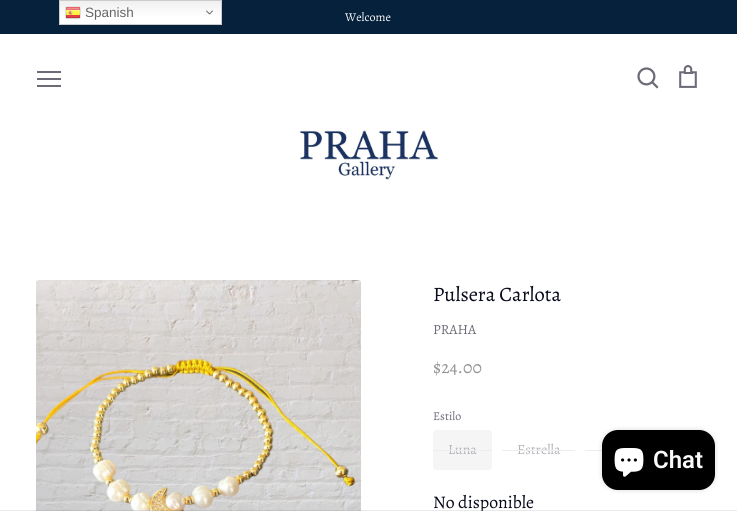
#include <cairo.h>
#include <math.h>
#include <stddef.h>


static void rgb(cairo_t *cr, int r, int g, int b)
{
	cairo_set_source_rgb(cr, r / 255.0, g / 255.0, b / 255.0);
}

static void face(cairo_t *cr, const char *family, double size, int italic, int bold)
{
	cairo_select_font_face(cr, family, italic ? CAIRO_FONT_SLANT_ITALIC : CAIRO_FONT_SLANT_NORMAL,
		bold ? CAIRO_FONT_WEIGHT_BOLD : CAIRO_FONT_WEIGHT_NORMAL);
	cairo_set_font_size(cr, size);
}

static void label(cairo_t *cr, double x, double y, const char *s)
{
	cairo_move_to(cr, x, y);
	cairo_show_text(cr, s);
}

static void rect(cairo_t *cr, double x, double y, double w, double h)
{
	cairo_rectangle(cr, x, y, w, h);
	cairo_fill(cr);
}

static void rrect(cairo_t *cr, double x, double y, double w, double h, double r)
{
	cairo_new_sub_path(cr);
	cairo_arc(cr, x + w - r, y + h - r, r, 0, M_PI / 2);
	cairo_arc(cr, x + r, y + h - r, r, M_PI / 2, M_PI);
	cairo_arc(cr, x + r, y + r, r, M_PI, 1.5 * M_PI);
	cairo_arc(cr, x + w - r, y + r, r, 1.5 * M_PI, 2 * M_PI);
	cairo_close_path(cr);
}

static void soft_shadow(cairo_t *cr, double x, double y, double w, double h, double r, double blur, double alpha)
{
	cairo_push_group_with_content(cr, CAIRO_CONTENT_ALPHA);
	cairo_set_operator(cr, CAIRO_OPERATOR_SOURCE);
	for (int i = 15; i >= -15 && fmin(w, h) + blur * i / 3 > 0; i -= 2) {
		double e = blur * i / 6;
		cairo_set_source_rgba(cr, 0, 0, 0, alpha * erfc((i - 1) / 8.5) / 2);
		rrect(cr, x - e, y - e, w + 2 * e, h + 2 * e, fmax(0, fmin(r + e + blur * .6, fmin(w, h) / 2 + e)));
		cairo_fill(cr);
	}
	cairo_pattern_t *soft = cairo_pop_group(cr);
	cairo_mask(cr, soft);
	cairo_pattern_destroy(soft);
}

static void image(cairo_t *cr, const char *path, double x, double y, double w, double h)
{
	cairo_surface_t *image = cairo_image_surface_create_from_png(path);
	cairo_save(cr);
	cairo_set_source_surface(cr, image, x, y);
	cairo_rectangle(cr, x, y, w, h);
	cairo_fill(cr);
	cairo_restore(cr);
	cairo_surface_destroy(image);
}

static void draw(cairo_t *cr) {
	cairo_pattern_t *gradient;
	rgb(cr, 255, 255, 255);
	cairo_paint(cr);
	rgb(cr, 5, 33, 60);
	rect(cr, 0, 0, 737, 34);
	gradient = cairo_pattern_create_linear(141, 0, 141, 25);
	cairo_pattern_add_color_stop_rgba(gradient, 0, 0.937, 0.937, 0.937, 1);
	cairo_pattern_add_color_stop_rgba(gradient, 0.7, 1, 1, 1, 1);
	cairo_set_source(cr, gradient);
	cairo_pattern_destroy(gradient);
	rect(cr, 60, 1, 161, 23);
	cairo_rectangle(cr, 59.5, 0.5, 162, 24);
	rgb(cr, 204, 204, 204);
	cairo_set_line_width(cr, 1);
	cairo_stroke(cr);
	image(cr, "image0.png", 65, 6, 16, 14);
	face(cr, "Liberation Sans", 13.5, 0, 0);
	rgb(cr, 102, 102, 102);
	label(cr, 85, 17, "Spanish");
	image(cr, "image1.png", 206, 10, 7, 5);
	face(cr, "Alegreya", 12, 0, 0);
	rgb(cr, 250, 250, 250);
	label(cr, 345, 21, "Welcome");
	rgb(cr, 107, 108, 119);
	rect(cr, 37, 71, 24, 2);
	rect(cr, 37, 78, 24, 2);
	rect(cr, 37, 85, 24, 2);
	image(cr, "image2.png", 637, 67, 22, 22);
	image(cr, "image3.png", 679, 65, 18, 23);
	image(cr, "image4.png", 300, 130, 139, 50);
	image(cr, "image5.png", 36, 280, 325, 231);
	face(cr, "Alegreya", 17.75, 0, 0);
	rgb(cr, 8, 10, 28);
	label(cr, 433, 508, "No disponible");
	cairo_set_source_rgba(cr, 0.42, 0.424, 0.467, 0.15);
	rect(cr, 0, 510, 737, 1);
	face(cr, "Alegreya", 20.5, 0, 0);
	rgb(cr, 8, 10, 28);
	label(cr, 433, 301, "Pulsera Carlota");
	face(cr, "Alegreya", 14, 0, 0);
	rgb(cr, 107, 108, 119);
	label(cr, 433, 334, "PRAHA");
	face(cr, "Alegreya", 17.75, 0, 0);
	rgb(cr, 147, 147, 147);
	label(cr, 433, 373, "$24.00");
	face(cr, "Alegreya", 12, 0, 0);
	rgb(cr, 107, 108, 119);
	label(cr, 433, 420, "Estilo");
	rgb(cr, 245, 245, 245);
	rrect(cr, 433, 430, 59, 40, 3);
	cairo_fill(cr);
	face(cr, "Alegreya", 14, 0, 0);
	rgb(cr, 181, 182, 187);
	label(cr, 448, 454, "Luna");
	rgb(cr, 237, 237, 238);
	rect(cr, 433, 450, 59, 1);
	rgb(cr, 181, 182, 187);
	label(cr, 517, 454, "Estrella");
	rgb(cr, 237, 237, 238);
	rect(cr, 502, 450, 73, 1);
	rect(cr, 585, 450, 17, 1);
	rgb(cr, 0, 0, 0);
	soft_shadow(cr, 602, 430, 113, 60, 16, 2.5, 0.15);
	rgb(cr, 0, 0, 0);
	rrect(cr, 602, 430, 113, 60, 16);
	cairo_fill(cr);
	image(cr, "image6.png", 614, 448, 30, 29);
	face(cr, "Roboto SemiBold", 24, 0, 0);
	rgb(cr, 250, 250, 250);
	label(cr, 653, 468, "Chat");
}

int main(void) {
	cairo_surface_t *surface = cairo_image_surface_create(CAIRO_FORMAT_RGB24, 737, 511);
	cairo_t *cr = cairo_create(surface);
	cairo_font_options_t *options = cairo_font_options_create();
	cairo_font_options_set_hint_metrics(options, CAIRO_HINT_METRICS_OFF);
	cairo_font_options_set_hint_style(options, CAIRO_HINT_STYLE_NONE);
	cairo_set_font_options(cr, options);
	cairo_set_miter_limit(cr, 4);
	draw(cr);
	cairo_surface_write_to_png(surface, "render.png");
	cairo_font_options_destroy(options);
	cairo_destroy(cr);
	cairo_surface_destroy(surface);
	return 0;
}
